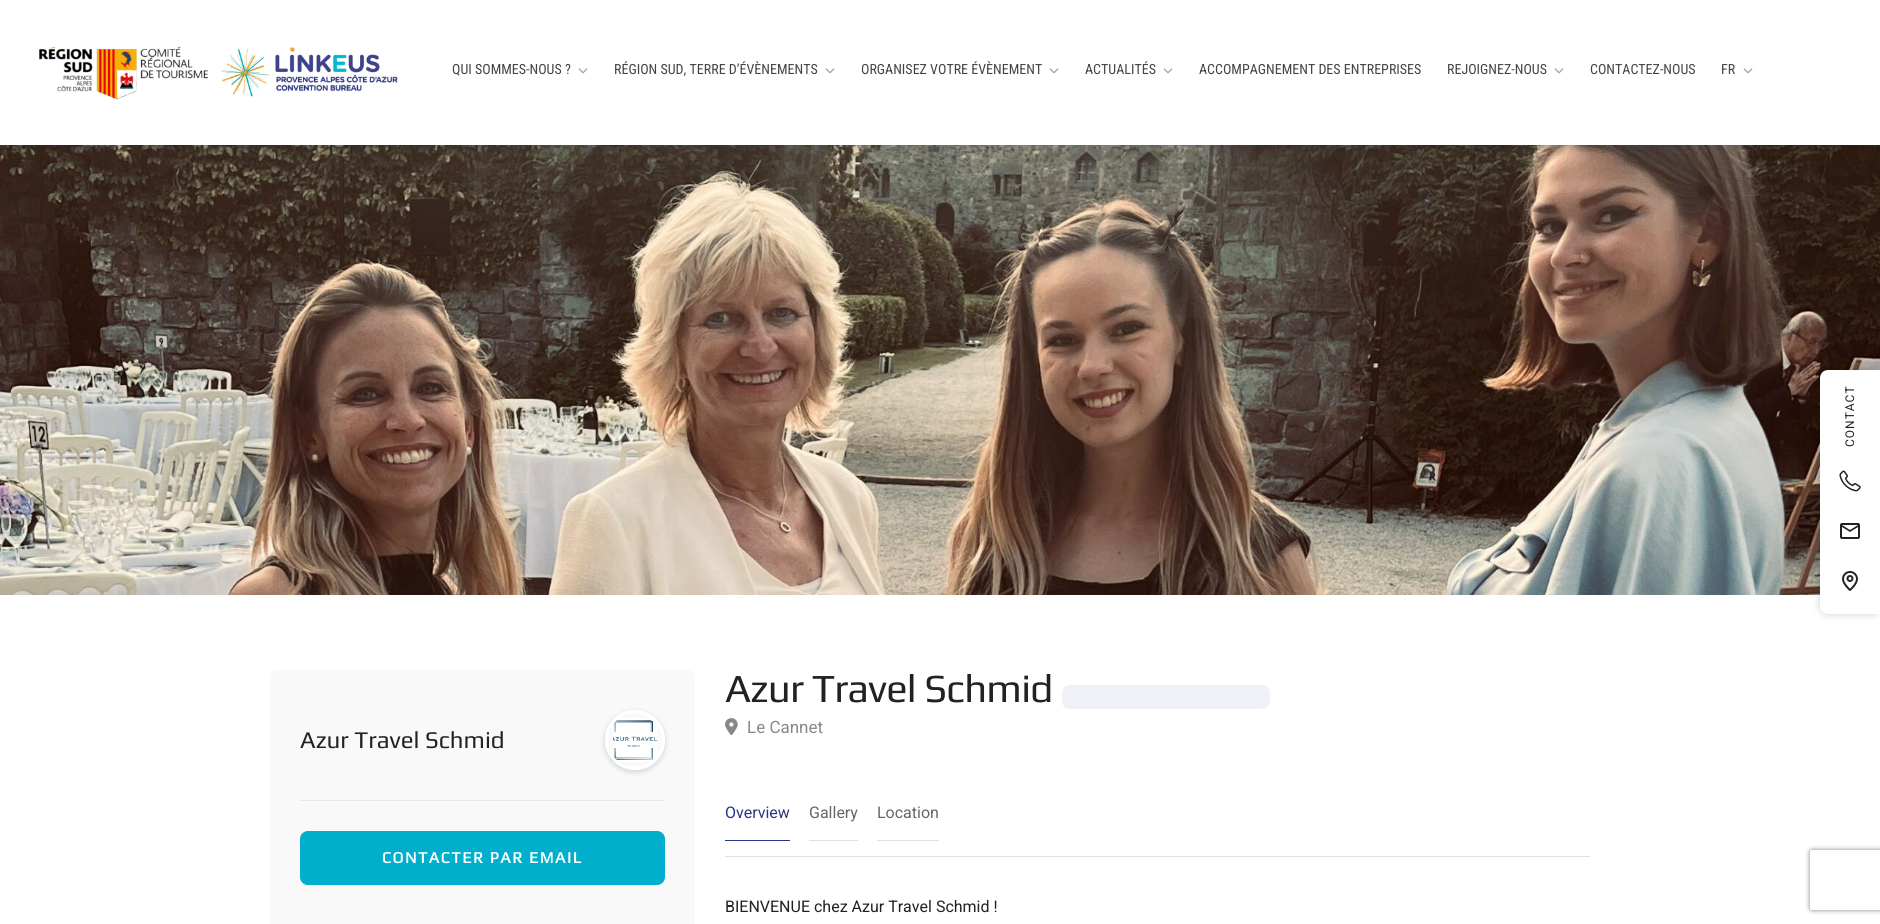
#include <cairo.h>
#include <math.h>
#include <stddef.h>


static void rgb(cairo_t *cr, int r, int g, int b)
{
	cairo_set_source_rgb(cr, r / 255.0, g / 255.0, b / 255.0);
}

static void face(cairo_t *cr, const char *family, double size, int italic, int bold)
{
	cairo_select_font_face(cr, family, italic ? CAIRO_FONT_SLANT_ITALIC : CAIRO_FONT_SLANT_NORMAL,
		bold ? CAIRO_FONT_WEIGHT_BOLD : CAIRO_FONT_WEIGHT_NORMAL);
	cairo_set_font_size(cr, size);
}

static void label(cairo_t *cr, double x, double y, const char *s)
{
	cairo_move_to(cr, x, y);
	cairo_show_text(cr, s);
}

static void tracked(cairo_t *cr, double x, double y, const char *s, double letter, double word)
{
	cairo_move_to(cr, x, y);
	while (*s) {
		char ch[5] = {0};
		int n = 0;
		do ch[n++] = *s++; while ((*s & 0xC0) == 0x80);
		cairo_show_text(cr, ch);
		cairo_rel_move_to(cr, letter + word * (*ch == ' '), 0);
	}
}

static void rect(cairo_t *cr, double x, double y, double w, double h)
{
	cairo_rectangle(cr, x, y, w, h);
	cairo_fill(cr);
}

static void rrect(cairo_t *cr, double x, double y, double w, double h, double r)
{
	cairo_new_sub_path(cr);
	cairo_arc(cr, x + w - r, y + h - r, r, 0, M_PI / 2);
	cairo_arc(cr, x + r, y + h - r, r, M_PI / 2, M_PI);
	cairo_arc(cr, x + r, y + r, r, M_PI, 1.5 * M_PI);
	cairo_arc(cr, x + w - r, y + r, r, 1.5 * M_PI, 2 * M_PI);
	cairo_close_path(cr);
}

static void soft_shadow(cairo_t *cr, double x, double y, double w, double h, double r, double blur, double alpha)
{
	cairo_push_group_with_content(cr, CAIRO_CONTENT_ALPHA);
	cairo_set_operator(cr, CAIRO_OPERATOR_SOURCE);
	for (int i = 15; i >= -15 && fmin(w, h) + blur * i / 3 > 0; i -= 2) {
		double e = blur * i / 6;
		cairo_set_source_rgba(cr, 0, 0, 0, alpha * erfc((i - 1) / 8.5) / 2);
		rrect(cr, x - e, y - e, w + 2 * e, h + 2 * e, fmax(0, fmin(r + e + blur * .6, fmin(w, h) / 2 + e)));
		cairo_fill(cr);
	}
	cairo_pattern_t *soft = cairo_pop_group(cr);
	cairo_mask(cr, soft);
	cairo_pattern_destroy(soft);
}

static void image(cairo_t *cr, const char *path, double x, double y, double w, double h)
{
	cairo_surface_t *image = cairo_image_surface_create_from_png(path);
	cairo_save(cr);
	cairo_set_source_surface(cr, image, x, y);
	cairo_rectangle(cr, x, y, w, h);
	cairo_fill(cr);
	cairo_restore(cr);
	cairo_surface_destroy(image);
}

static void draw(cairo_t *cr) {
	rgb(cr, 255, 255, 255);
	cairo_paint(cr);
	image(cr, "image2.png", 0, 145, 1880, 450);
	cairo_save(cr);
	cairo_rectangle(cr, 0, 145, 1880, 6);
	cairo_clip(cr);
	rgb(cr, 0, 0, 0);
	soft_shadow(cr, 0, 0, 1880, 145, 0, 6, 0.12);
	cairo_restore(cr);
	image(cr, "image0.png", 39, 46, 359, 54);
	face(cr, "Roboto Condensed", 14, 0, 0);
	rgb(cr, 68, 68, 68);
	label(cr, 452, 74, "QUI SOMMES-NOUS ?");
	image(cr, "image1.png", 578, 68, 10, 6);
	label(cr, 614, 74, "RÉGION SUD, TERRE D’ÉVÈNEMENTS");
	image(cr, "image1.png", 825, 68, 10, 6);
	label(cr, 861, 74, "ORGANISEZ VOTRE ÉVÈNEMENT");
	image(cr, "image1.png", 1049, 68, 10, 6);
	label(cr, 1085, 74, "ACTUALITÉS");
	image(cr, "image1.png", 1163, 68, 10, 6);
	label(cr, 1199, 74, "ACCOMPAGNEMENT DES ENTREPRISES");
	label(cr, 1447, 74, "REJOIGNEZ-NOUS");
	image(cr, "image1.png", 1554, 68, 10, 6);
	label(cr, 1590, 74, "CONTACTEZ-NOUS");
	label(cr, 1721, 74, "FR");
	image(cr, "image1.png", 1743, 68, 10, 6);
	rgb(cr, 249, 249, 249);
	rrect(cr, 270, 670, 425, 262, 8);
	cairo_fill(cr);
	rgb(cr, 232, 232, 232);
	rect(cr, 300, 800, 365, 1);
	face(cr, "Play", 24, 0, 0);
	rgb(cr, 34, 34, 34);
	label(cr, 300, 748, "Azur Travel Schmid");
	cairo_save(cr);
	cairo_set_fill_rule(cr, CAIRO_FILL_RULE_EVEN_ODD);
	cairo_new_path(cr);
	cairo_move_to(cr, 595, 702);
	cairo_line_to(cr, 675, 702);
	cairo_line_to(cr, 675, 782);
	cairo_line_to(cr, 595, 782);
	cairo_close_path(cr);
	cairo_move_to(cr, 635, 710);
	cairo_curve_to(cr, 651.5, 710, 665, 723.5, 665, 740);
	cairo_curve_to(cr, 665, 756.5, 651.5, 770, 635, 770);
	cairo_curve_to(cr, 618.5, 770, 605, 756.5, 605, 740);
	cairo_curve_to(cr, 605, 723.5, 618.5, 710, 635, 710);
	cairo_close_path(cr);
	cairo_clip(cr);
	rgb(cr, 0, 0, 0);
	soft_shadow(cr, 605, 712, 60, 60, 30, 3, 0.16);
	cairo_restore(cr);
	cairo_arc(cr, 635, 740, 28.5, 0, 2 * M_PI);
	rgb(cr, 255, 255, 255);
	cairo_set_line_width(cr, 3);
	cairo_stroke(cr);
	image(cr, "image3.png", 613, 718, 44, 44);
	rgb(cr, 0, 175, 203);
	rrect(cr, 300, 831, 365, 54, 8);
	cairo_fill(cr);
	face(cr, "Play", 16, 0, 1);
	rgb(cr, 255, 255, 255);
	tracked(cr, 382, 863, "CONTACTER PAR EMAIL", 1.5, 0);
	face(cr, "Play", 40, 0, 0);
	rgb(cr, 34, 34, 34);
	tracked(cr, 725, 702, "Azur Travel Schmid", -0.75, 0);
	rgb(cr, 240, 241, 246);
	rrect(cr, 1062, 685, 208, 24, 8);
	cairo_fill(cr);
	image(cr, "image4.png", 725, 718, 13, 18);
	face(cr, "Roboto", 17, 0, 0);
	rgb(cr, 136, 136, 136);
	label(cr, 747, 733, "Le Cannet");
	rgb(cr, 224, 224, 224);
	rect(cr, 725, 856, 865, 1);
	rgb(cr, 40, 53, 131);
	rect(cr, 725, 840, 65, 1);
	face(cr, "Roboto", 16, 0, 0);
	label(cr, 725, 818, "Overview");
	rgb(cr, 224, 224, 224);
	rect(cr, 809, 840, 49, 1);
	rgb(cr, 102, 102, 102);
	label(cr, 809, 818, "Gallery");
	rgb(cr, 224, 224, 224);
	rect(cr, 877, 840, 62, 1);
	rgb(cr, 102, 102, 102);
	label(cr, 877, 818, "Location");
	rgb(cr, 34, 34, 34);
	label(cr, 725, 912, "BIENVENUE chez Azur Travel Schmid !");
	rgb(cr, 0, 0, 0);
	soft_shadow(cr, 1820, 370, 60, 244, 8, 4, 0.2);
	rgb(cr, 255, 255, 255);
	cairo_new_path(cr);
	cairo_move_to(cr, 1828, 370);
	cairo_line_to(cr, 1880, 370);
	cairo_line_to(cr, 1880, 614);
	cairo_line_to(cr, 1828, 614);
	cairo_curve_to(cr, 1823.5, 614, 1820, 610.5, 1820, 606);
	cairo_line_to(cr, 1820, 378);
	cairo_curve_to(cr, 1820, 373.5, 1823.5, 370, 1828, 370);
	cairo_close_path(cr);
	cairo_fill(cr);
	face(cr, "Roboto", 12, 0, 0);
	rgb(cr, 34, 34, 34);
	cairo_save(cr);
	cairo_translate(cr, 1854, 447);
	cairo_rotate(cr, -90 * M_PI / 180);
	tracked(cr, 0, 0, "CONTACT", 1, 0);
	cairo_restore(cr);
	image(cr, "image5.png", 1839, 470, 22, 22);
	image(cr, "image6.png", 1840, 523, 20, 16);
	image(cr, "image7.png", 1842, 571, 16, 20);
	cairo_save(cr);
	cairo_set_fill_rule(cr, CAIRO_FILL_RULE_EVEN_ODD);
	cairo_new_path(cr);
	cairo_move_to(cr, 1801, 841);
	cairo_line_to(cr, 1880, 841);
	cairo_line_to(cr, 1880, 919);
	cairo_line_to(cr, 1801, 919);
	cairo_close_path(cr);
	cairo_move_to(cr, 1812, 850);
	cairo_line_to(cr, 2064, 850);
	cairo_curve_to(cr, 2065, 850, 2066, 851, 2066, 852);
	cairo_line_to(cr, 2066, 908);
	cairo_curve_to(cr, 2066, 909, 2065, 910, 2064, 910);
	cairo_line_to(cr, 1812, 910);
	cairo_curve_to(cr, 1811, 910, 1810, 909, 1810, 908);
	cairo_line_to(cr, 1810, 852);
	cairo_curve_to(cr, 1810, 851, 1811, 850, 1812, 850);
	cairo_close_path(cr);
	cairo_clip(cr);
	rgb(cr, 128, 128, 128);
	soft_shadow(cr, 1810, 850, 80, 60, 2, 2.5, 1);
	cairo_restore(cr);
}

int main(void) {
	cairo_surface_t *surface = cairo_image_surface_create(CAIRO_FORMAT_RGB24, 1880, 924);
	cairo_t *cr = cairo_create(surface);
	cairo_font_options_t *options = cairo_font_options_create();
	cairo_font_options_set_hint_metrics(options, CAIRO_HINT_METRICS_OFF);
	cairo_font_options_set_hint_style(options, CAIRO_HINT_STYLE_NONE);
	cairo_set_font_options(cr, options);
	cairo_set_miter_limit(cr, 4);
	draw(cr);
	cairo_surface_write_to_png(surface, "render.png");
	cairo_font_options_destroy(options);
	cairo_destroy(cr);
	cairo_surface_destroy(surface);
	return 0;
}
